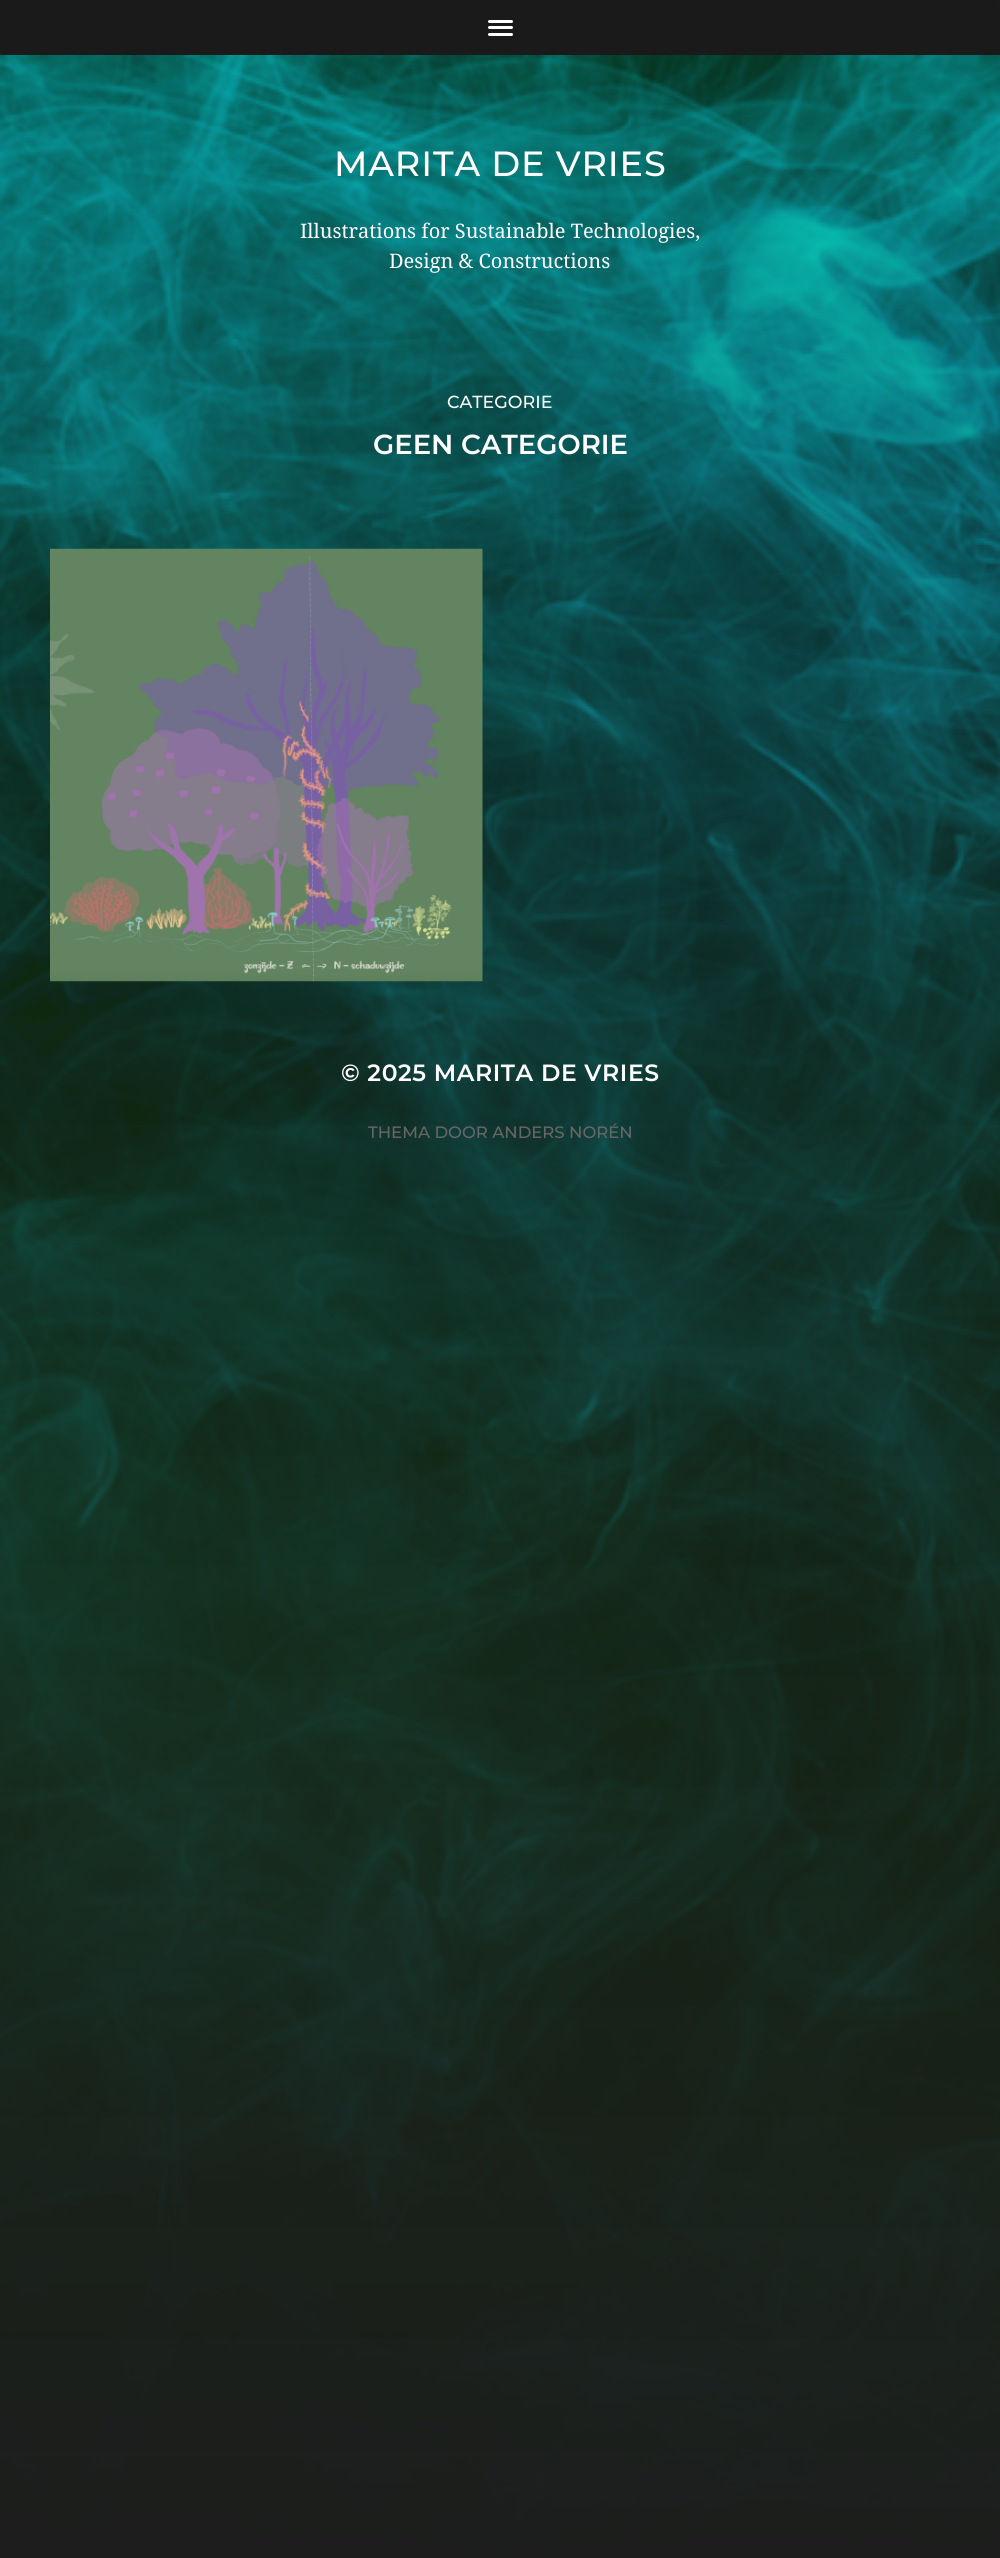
#include <cairo.h>
#include <math.h>
#include <stddef.h>


static void rgb(cairo_t *cr, int r, int g, int b)
{
	cairo_set_source_rgb(cr, r / 255.0, g / 255.0, b / 255.0);
}

static void face(cairo_t *cr, const char *family, double size, int italic, int bold)
{
	cairo_select_font_face(cr, family, italic ? CAIRO_FONT_SLANT_ITALIC : CAIRO_FONT_SLANT_NORMAL,
		bold ? CAIRO_FONT_WEIGHT_BOLD : CAIRO_FONT_WEIGHT_NORMAL);
	cairo_set_font_size(cr, size);
}

static void label(cairo_t *cr, double x, double y, const char *s)
{
	cairo_move_to(cr, x, y);
	cairo_show_text(cr, s);
}

static void tracked(cairo_t *cr, double x, double y, const char *s, double letter, double word)
{
	cairo_move_to(cr, x, y);
	while (*s) {
		char ch[5] = {0};
		int n = 0;
		do ch[n++] = *s++; while ((*s & 0xC0) == 0x80);
		cairo_show_text(cr, ch);
		cairo_rel_move_to(cr, letter + word * (*ch == ' '), 0);
	}
}

static void rrect(cairo_t *cr, double x, double y, double w, double h, double r)
{
	cairo_new_sub_path(cr);
	cairo_arc(cr, x + w - r, y + h - r, r, 0, M_PI / 2);
	cairo_arc(cr, x + r, y + h - r, r, M_PI / 2, M_PI);
	cairo_arc(cr, x + r, y + r, r, M_PI, 1.5 * M_PI);
	cairo_arc(cr, x + w - r, y + r, r, 1.5 * M_PI, 2 * M_PI);
	cairo_close_path(cr);
}

static void image(cairo_t *cr, const char *path, double x, double y, double w, double h)
{
	cairo_surface_t *image = cairo_image_surface_create_from_png(path);
	cairo_save(cr);
	cairo_set_source_surface(cr, image, x, y);
	cairo_rectangle(cr, x, y, w, h);
	cairo_fill(cr);
	cairo_restore(cr);
	cairo_surface_destroy(image);
}

static void draw(cairo_t *cr) {
	rgb(cr, 29, 29, 29);
	cairo_paint(cr);
	rgb(cr, 26, 26, 26);
	rrect(cr, 0, 0, 1000, 55, 4);
	cairo_fill(cr);
	rgb(cr, 255, 255, 255);
	rrect(cr, 488, 20, 25, 3, 1.5);
	cairo_fill(cr);
	rrect(cr, 488, 26, 25, 3, 1.5);
	cairo_fill(cr);
	rrect(cr, 488, 33, 25, 3, 1.5);
	cairo_fill(cr);
	image(cr, "image0.png", 0, 55, 1000, 2503);
	face(cr, "Montserrat Medium", 35, 0, 0);
	tracked(cr, 334, 176, "MARITA DE VRIES", 0.9, 0);
	face(cr, "Droid Serif", 20, 0, 0);
	label(cr, 300, 238, "Illustrations for Sustainable Technologies,");
	label(cr, 389, 268, "Design & Constructions");
	face(cr, "Montserrat Medium", 17.5, 0, 0);
	label(cr, 447, 408, "CATEGORIE");
	face(cr, "Montserrat SemiBold", 27.5, 0, 0);
	label(cr, 373, 454, "GEEN CATEGORIE");
	image(cr, "image1.png", 50, 548, 433, 434);
	face(cr, "Montserrat SemiBold", 23.5, 0, 0);
	tracked(cr, 341, 1081, "© 2025 MARITA DE VRIES", 0.6, 0);
	face(cr, "Montserrat Medium", 16.5, 0, 0);
	rgb(cr, 102, 102, 102);
	label(cr, 368, 1138, "THEMA DOOR ANDERS NORÉN");
}

int main(void) {
	cairo_surface_t *surface = cairo_image_surface_create(CAIRO_FORMAT_RGB24, 1000, 2558);
	cairo_t *cr = cairo_create(surface);
	cairo_font_options_t *options = cairo_font_options_create();
	cairo_font_options_set_hint_metrics(options, CAIRO_HINT_METRICS_OFF);
	cairo_font_options_set_hint_style(options, CAIRO_HINT_STYLE_NONE);
	cairo_set_font_options(cr, options);
	cairo_set_miter_limit(cr, 4);
	draw(cr);
	cairo_surface_write_to_png(surface, "render.png");
	cairo_font_options_destroy(options);
	cairo_destroy(cr);
	cairo_surface_destroy(surface);
	return 0;
}
